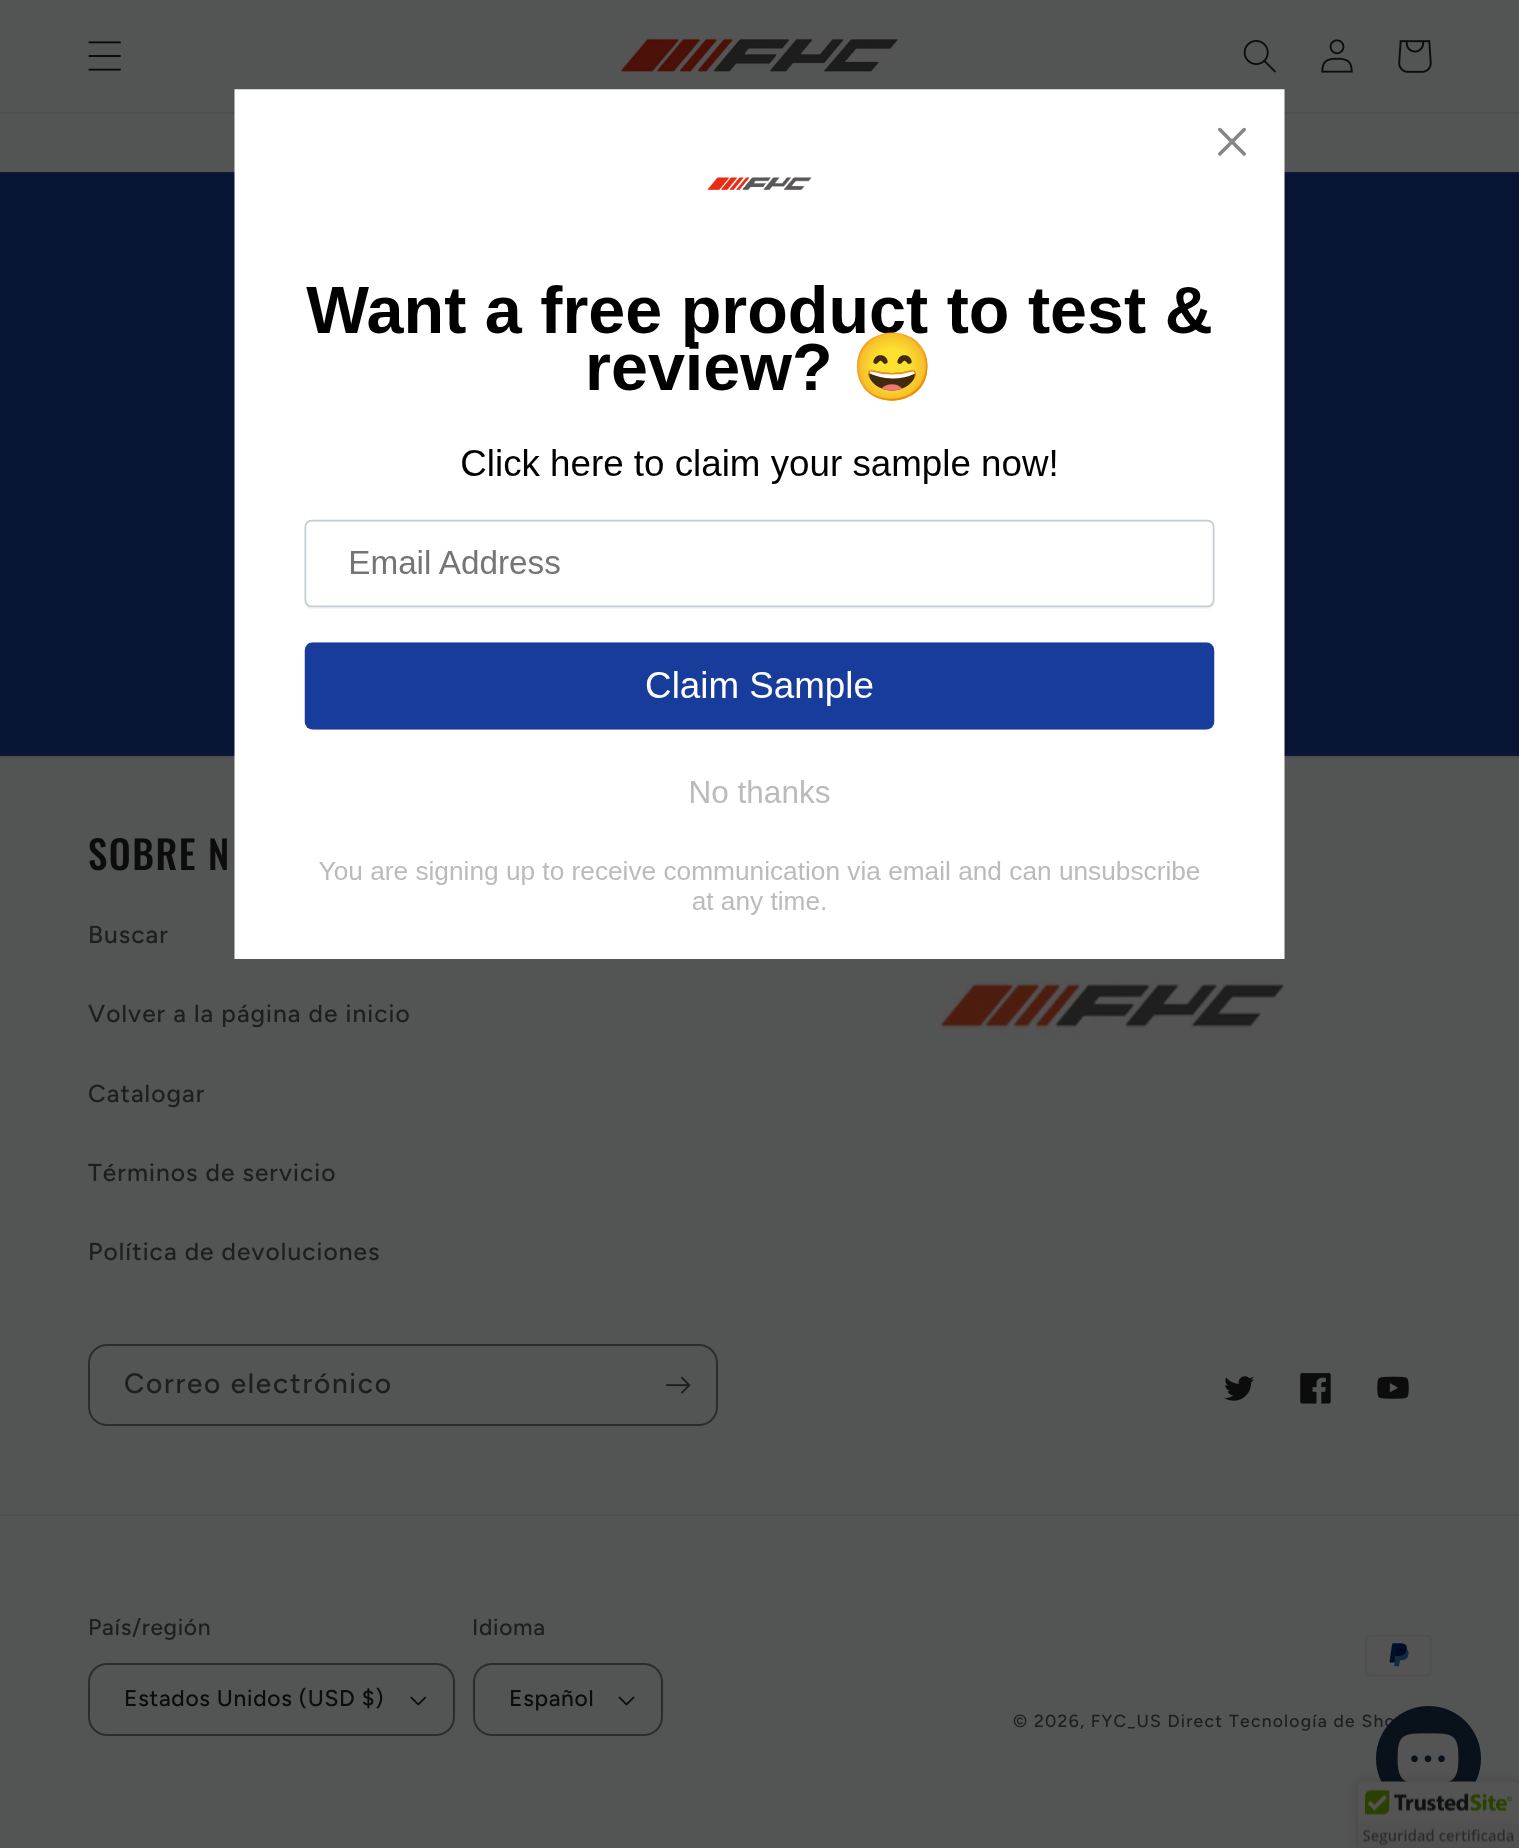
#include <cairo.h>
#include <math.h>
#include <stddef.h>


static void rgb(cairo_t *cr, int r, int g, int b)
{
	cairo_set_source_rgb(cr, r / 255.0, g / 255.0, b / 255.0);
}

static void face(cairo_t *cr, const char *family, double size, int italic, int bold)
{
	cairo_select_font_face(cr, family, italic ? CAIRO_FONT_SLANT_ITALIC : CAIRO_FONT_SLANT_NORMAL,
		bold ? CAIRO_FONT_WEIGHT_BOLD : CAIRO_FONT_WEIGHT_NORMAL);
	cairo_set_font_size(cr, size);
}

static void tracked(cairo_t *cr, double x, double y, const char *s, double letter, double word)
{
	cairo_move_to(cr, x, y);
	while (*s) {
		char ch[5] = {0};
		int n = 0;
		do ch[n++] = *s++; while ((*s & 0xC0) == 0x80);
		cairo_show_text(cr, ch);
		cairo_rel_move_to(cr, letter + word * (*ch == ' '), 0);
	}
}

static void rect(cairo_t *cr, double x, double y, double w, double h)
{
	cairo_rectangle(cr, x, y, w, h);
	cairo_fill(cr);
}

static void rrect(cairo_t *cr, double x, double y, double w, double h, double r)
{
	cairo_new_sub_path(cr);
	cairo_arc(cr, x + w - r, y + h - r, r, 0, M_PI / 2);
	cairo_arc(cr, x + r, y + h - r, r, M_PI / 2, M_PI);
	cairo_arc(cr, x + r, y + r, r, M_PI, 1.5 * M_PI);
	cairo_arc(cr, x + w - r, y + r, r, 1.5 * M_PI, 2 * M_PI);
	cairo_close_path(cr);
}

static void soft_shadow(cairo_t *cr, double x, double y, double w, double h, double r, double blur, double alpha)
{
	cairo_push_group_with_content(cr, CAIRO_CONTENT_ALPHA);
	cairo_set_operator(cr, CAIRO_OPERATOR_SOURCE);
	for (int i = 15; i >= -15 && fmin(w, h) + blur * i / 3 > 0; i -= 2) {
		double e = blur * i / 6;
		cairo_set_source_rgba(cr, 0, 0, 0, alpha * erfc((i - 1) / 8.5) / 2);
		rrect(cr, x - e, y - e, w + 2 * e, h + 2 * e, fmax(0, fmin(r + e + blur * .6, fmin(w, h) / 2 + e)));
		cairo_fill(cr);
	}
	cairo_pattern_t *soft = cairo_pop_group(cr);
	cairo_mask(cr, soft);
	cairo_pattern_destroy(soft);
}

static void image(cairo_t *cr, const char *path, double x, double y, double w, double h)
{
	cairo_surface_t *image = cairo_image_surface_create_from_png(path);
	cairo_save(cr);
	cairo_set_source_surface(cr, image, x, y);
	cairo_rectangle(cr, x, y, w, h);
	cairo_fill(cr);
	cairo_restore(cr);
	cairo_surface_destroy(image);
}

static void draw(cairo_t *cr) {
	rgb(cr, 253, 254, 255);
	cairo_paint(cr);
	rgb(cr, 236, 237, 238);
	rect(cr, 0, 112, 1519, 2);
	image(cr, "image1.png", 88, 41, 33, 30);
	image(cr, "image2.png", 619, 37, 279, 35);
	image(cr, "image3.png", 1243, 40, 33, 33);
	image(cr, "image4.png", 1321, 39, 32, 34);
	image(cr, "image5.png", 1398, 40, 34, 33);
	rgb(cr, 23, 60, 156);
	rect(cr, 0, 174, 1519, 580);
	rgb(cr, 37, 74, 160);
	rect(cr, 0, 172, 1519, 2);
	rect(cr, 0, 754, 1519, 2);
	rgb(cr, 236, 237, 238);
	rect(cr, 0, 756, 1519, 2);
	face(cr, "Oswald Medium", 39, 0, 0);
	rgb(cr, 35, 37, 38);
	tracked(cr, 88, 870, "SOBRE N", 1.5, 0);
	face(cr, "Figtree Medium", 24.5, 0, 0);
	rgb(cr, 90, 91, 92);
	tracked(cr, 88, 943, "Buscar", 1.05, 0);
	tracked(cr, 88, 1022, "Volver a la página de inicio", 1.05, 0);
	tracked(cr, 88, 1102, "Catalogar", 1.05, 0);
	tracked(cr, 88, 1181, "Términos de servicio", 1.05, 0);
	tracked(cr, 88, 1260, "Política de devoluciones", 1.05, 0);
	image(cr, "image6.png", 938, 982, 347, 53);
	rrect(cr, 89, 1345, 628, 80, 18);
	rgb(cr, 133, 135, 136);
	cairo_stroke(cr);
	face(cr, "Figtree Medium", 28, 0, 0);
	rgb(cr, 90, 91, 92);
	tracked(cr, 124, 1393, "Correo electrónico", 1.75, 0);
	image(cr, "image7.png", 666, 1376, 25, 18);
	image(cr, "image8.png", 1224, 1376, 30, 25);
	image(cr, "image9.png", 1300, 1373, 31, 31);
	image(cr, "image10.png", 1377, 1376, 32, 23);
	rgb(cr, 236, 237, 238);
	rect(cr, 0, 1514, 1519, 2);
	face(cr, "Figtree Medium", 22.75, 0, 0);
	rgb(cr, 90, 91, 92);
	tracked(cr, 88, 1635, "País/región", 0.7, 0);
	image(cr, "image11.png", 410, 1696, 17, 10);
	rrect(cr, 89, 1664, 365, 71, 18);
	rgb(cr, 133, 135, 136);
	cairo_stroke(cr);
	rgb(cr, 35, 37, 38);
	tracked(cr, 124, 1706, "Estados Unidos (USD $)", 0.7, 0);
	rgb(cr, 90, 91, 92);
	tracked(cr, 472, 1635, "Idioma", 0.7, 0);
	image(cr, "image12.png", 618, 1696, 17, 10);
	rrect(cr, 474, 1664, 188, 71, 18);
	rgb(cr, 133, 135, 136);
	cairo_stroke(cr);
	rgb(cr, 35, 37, 38);
	tracked(cr, 509, 1706, "Español", 0.7, 0);
	image(cr, "image13.png", 1365, 1635, 67, 42);
	face(cr, "Figtree Medium", 17.5, 0, 0);
	rgb(cr, 90, 91, 92);
	tracked(cr, 1013, 1727, "© 2026, FYC_US Direct", 1.25, 0);
	tracked(cr, 1229, 1727, "Tecnología de Sho", 1.25, 0);
	rgb(cr, 28, 52, 80);
	cairo_new_path(cr);
	cairo_arc(cr, 1428.5, 1758.5, 52.5, 0, 2 * M_PI);
	cairo_fill(cr);
	image(cr, "image14.png", 1397, 1733, 62, 49);
	rgb(cr, 0, 0, 0);
	soft_shadow(cr, 1358, 1782, 161, 66, 4, 4.5, 0.2);
	image(cr, "image15.png", 1358, 1781, 161, 67);
	image(cr, "image0.png", 0, 0, 1519, 1848);
}

int main(void) {
	cairo_surface_t *surface = cairo_image_surface_create(CAIRO_FORMAT_RGB24, 1519, 1848);
	cairo_t *cr = cairo_create(surface);
	cairo_font_options_t *options = cairo_font_options_create();
	cairo_font_options_set_hint_metrics(options, CAIRO_HINT_METRICS_OFF);
	cairo_font_options_set_hint_style(options, CAIRO_HINT_STYLE_NONE);
	cairo_set_font_options(cr, options);
	cairo_set_miter_limit(cr, 4);
	draw(cr);
	cairo_surface_write_to_png(surface, "render.png");
	cairo_font_options_destroy(options);
	cairo_destroy(cr);
	cairo_surface_destroy(surface);
	return 0;
}
